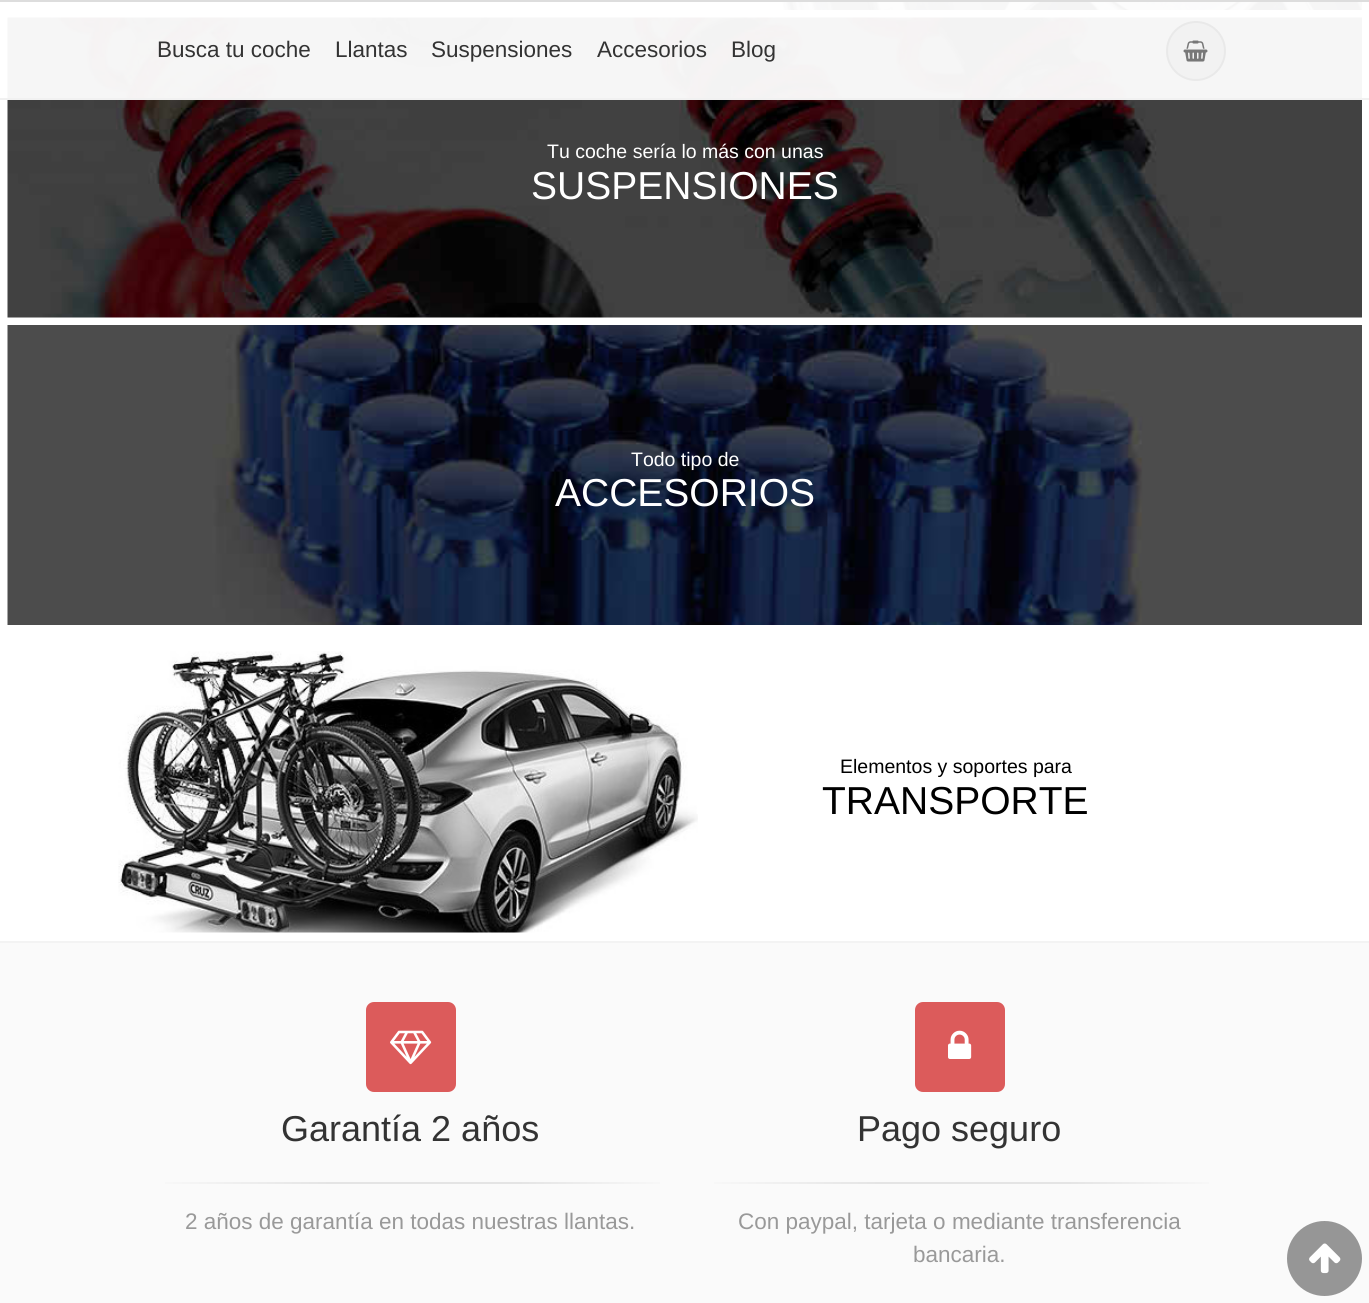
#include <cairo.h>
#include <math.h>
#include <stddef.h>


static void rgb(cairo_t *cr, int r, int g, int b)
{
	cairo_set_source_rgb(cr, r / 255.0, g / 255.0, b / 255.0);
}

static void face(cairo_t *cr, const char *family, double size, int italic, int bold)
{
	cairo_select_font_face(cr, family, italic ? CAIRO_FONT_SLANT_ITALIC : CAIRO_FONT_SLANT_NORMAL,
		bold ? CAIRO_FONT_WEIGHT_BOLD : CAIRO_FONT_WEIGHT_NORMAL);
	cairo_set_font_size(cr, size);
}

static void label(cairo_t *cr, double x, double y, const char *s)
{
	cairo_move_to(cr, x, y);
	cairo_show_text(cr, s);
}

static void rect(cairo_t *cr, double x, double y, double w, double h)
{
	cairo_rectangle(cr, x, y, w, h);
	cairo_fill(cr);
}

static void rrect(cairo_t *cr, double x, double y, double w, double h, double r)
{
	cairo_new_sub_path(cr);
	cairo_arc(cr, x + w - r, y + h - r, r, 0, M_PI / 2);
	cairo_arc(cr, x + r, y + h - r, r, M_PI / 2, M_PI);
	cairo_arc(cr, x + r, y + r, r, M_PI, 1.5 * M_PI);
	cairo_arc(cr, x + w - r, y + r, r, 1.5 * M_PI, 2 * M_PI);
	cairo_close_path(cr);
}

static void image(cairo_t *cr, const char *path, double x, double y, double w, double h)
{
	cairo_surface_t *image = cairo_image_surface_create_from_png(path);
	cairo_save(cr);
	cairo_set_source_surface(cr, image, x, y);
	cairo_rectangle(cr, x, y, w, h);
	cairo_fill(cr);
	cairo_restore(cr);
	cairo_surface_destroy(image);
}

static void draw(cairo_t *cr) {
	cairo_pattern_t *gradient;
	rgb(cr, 255, 255, 255);
	cairo_paint(cr);
	image(cr, "image1.png", 782, 2, 580, 8);
	image(cr, "image2.png", 7, 17, 1355, 301);
	cairo_set_source_rgba(cr, 1, 1, 1, 0.95);
	rect(cr, 7, 2, 1355, 96);
	rgb(cr, 221, 221, 221);
	rect(cr, 0, 0, 1369, 2);
	rgb(cr, 241, 241, 241);
	rect(cr, 0, 98, 1369, 2);
	face(cr, "Liberation Sans", 22.5, 0, 0);
	rgb(cr, 51, 51, 51);
	label(cr, 157, 57, "Busca tu coche");
	label(cr, 335, 57, "Llantas");
	label(cr, 431, 57, "Suspensiones");
	label(cr, 597, 57, "Accesorios");
	label(cr, 731, 57, "Blog");
	rgb(cr, 242, 242, 242);
	cairo_new_path(cr);
	cairo_arc(cr, 1196, 51, 29, 0, 2 * M_PI);
	cairo_fill_preserve(cr);
	rgb(cr, 233, 233, 233);
	cairo_stroke(cr);
	image(cr, "image0.png", 1183, 40, 25, 22);
	face(cr, "Liberation Sans", 19.5, 0, 0);
	rgb(cr, 255, 255, 255);
	label(cr, 547, 158, "Tu coche sería lo más con unas");
	face(cr, "Liberation Sans", 39, 0, 0);
	label(cr, 531, 199, "SUSPENSIONES");
	image(cr, "image3.png", 7, 325, 1355, 300);
	face(cr, "Liberation Sans", 19.5, 0, 0);
	label(cr, 631, 466, "Todo tipo de");
	face(cr, "Liberation Sans", 39, 0, 0);
	label(cr, 555, 506, "ACCESORIOS");
	image(cr, "image4.png", 118, 651, 580, 282);
	face(cr, "Liberation Sans", 19.5, 0, 0);
	rgb(cr, 0, 0, 0);
	label(cr, 840, 773, "Elementos y soportes para");
	face(cr, "Liberation Sans", 39, 0, 0);
	label(cr, 822, 814, "TRANSPORTE");
	rgb(cr, 250, 250, 250);
	rect(cr, 0, 943, 1369, 360);
	rgb(cr, 243, 243, 243);
	rect(cr, 0, 941, 1369, 2);
	rgb(cr, 220, 91, 91);
	rrect(cr, 366, 1002, 90, 90, 8);
	cairo_fill(cr);
	image(cr, "image5.png", 390, 1030, 42, 35);
	face(cr, "Liberation Sans", 36, 0, 0);
	rgb(cr, 51, 51, 51);
	label(cr, 281, 1141, "Garantía 2 años");
	gradient = cairo_pattern_create_linear(144, 1183, 678, 1183);
	cairo_pattern_add_color_stop_rgba(gradient, 0, 0.98, 0.98, 0.98, 1);
	cairo_pattern_add_color_stop_rgba(gradient, 0.35, 0.894, 0.894, 0.894, 1);
	cairo_pattern_add_color_stop_rgba(gradient, 0.7, 0.894, 0.894, 0.894, 1);
	cairo_pattern_add_color_stop_rgba(gradient, 1, 0.98, 0.98, 0.98, 1);
	cairo_set_source(cr, gradient);
	cairo_pattern_destroy(gradient);
	rect(cr, 165, 1182, 495, 2);
	face(cr, "Liberation Sans", 22.5, 0, 0);
	rgb(cr, 153, 153, 153);
	label(cr, 185, 1229, "2 años de garantía en todas nuestras llantas.");
	rgb(cr, 220, 91, 91);
	rrect(cr, 915, 1002, 90, 90, 8);
	cairo_fill(cr);
	image(cr, "image6.png", 948, 1030, 24, 29);
	face(cr, "Liberation Sans", 36, 0, 0);
	rgb(cr, 51, 51, 51);
	label(cr, 857, 1141, "Pago seguro");
	gradient = cairo_pattern_create_linear(693, 1183, 1227, 1183);
	cairo_pattern_add_color_stop_rgba(gradient, 0, 0.98, 0.98, 0.98, 1);
	cairo_pattern_add_color_stop_rgba(gradient, 0.35, 0.894, 0.894, 0.894, 1);
	cairo_pattern_add_color_stop_rgba(gradient, 0.7, 0.894, 0.894, 0.894, 1);
	cairo_pattern_add_color_stop_rgba(gradient, 1, 0.98, 0.98, 0.98, 1);
	cairo_set_source(cr, gradient);
	cairo_pattern_destroy(gradient);
	rect(cr, 714, 1182, 495, 2);
	face(cr, "Liberation Sans", 22.5, 0, 0);
	rgb(cr, 153, 153, 153);
	label(cr, 738, 1229, "Con paypal, tarjeta o mediante transferencia");
	label(cr, 913, 1262, "bancaria.");
	rgb(cr, 150, 150, 150);
	cairo_new_path(cr);
	cairo_arc(cr, 1324.5, 1258.5, 37.5, 0, 2 * M_PI);
	cairo_fill(cr);
	image(cr, "image7.png", 1309, 1243, 32, 31);
}

int main(void) {
	cairo_surface_t *surface = cairo_image_surface_create(CAIRO_FORMAT_RGB24, 1369, 1303);
	cairo_t *cr = cairo_create(surface);
	cairo_font_options_t *options = cairo_font_options_create();
	cairo_font_options_set_hint_metrics(options, CAIRO_HINT_METRICS_OFF);
	cairo_font_options_set_hint_style(options, CAIRO_HINT_STYLE_NONE);
	cairo_set_font_options(cr, options);
	cairo_set_miter_limit(cr, 4);
	draw(cr);
	cairo_surface_write_to_png(surface, "render.png");
	cairo_font_options_destroy(options);
	cairo_destroy(cr);
	cairo_surface_destroy(surface);
	return 0;
}
